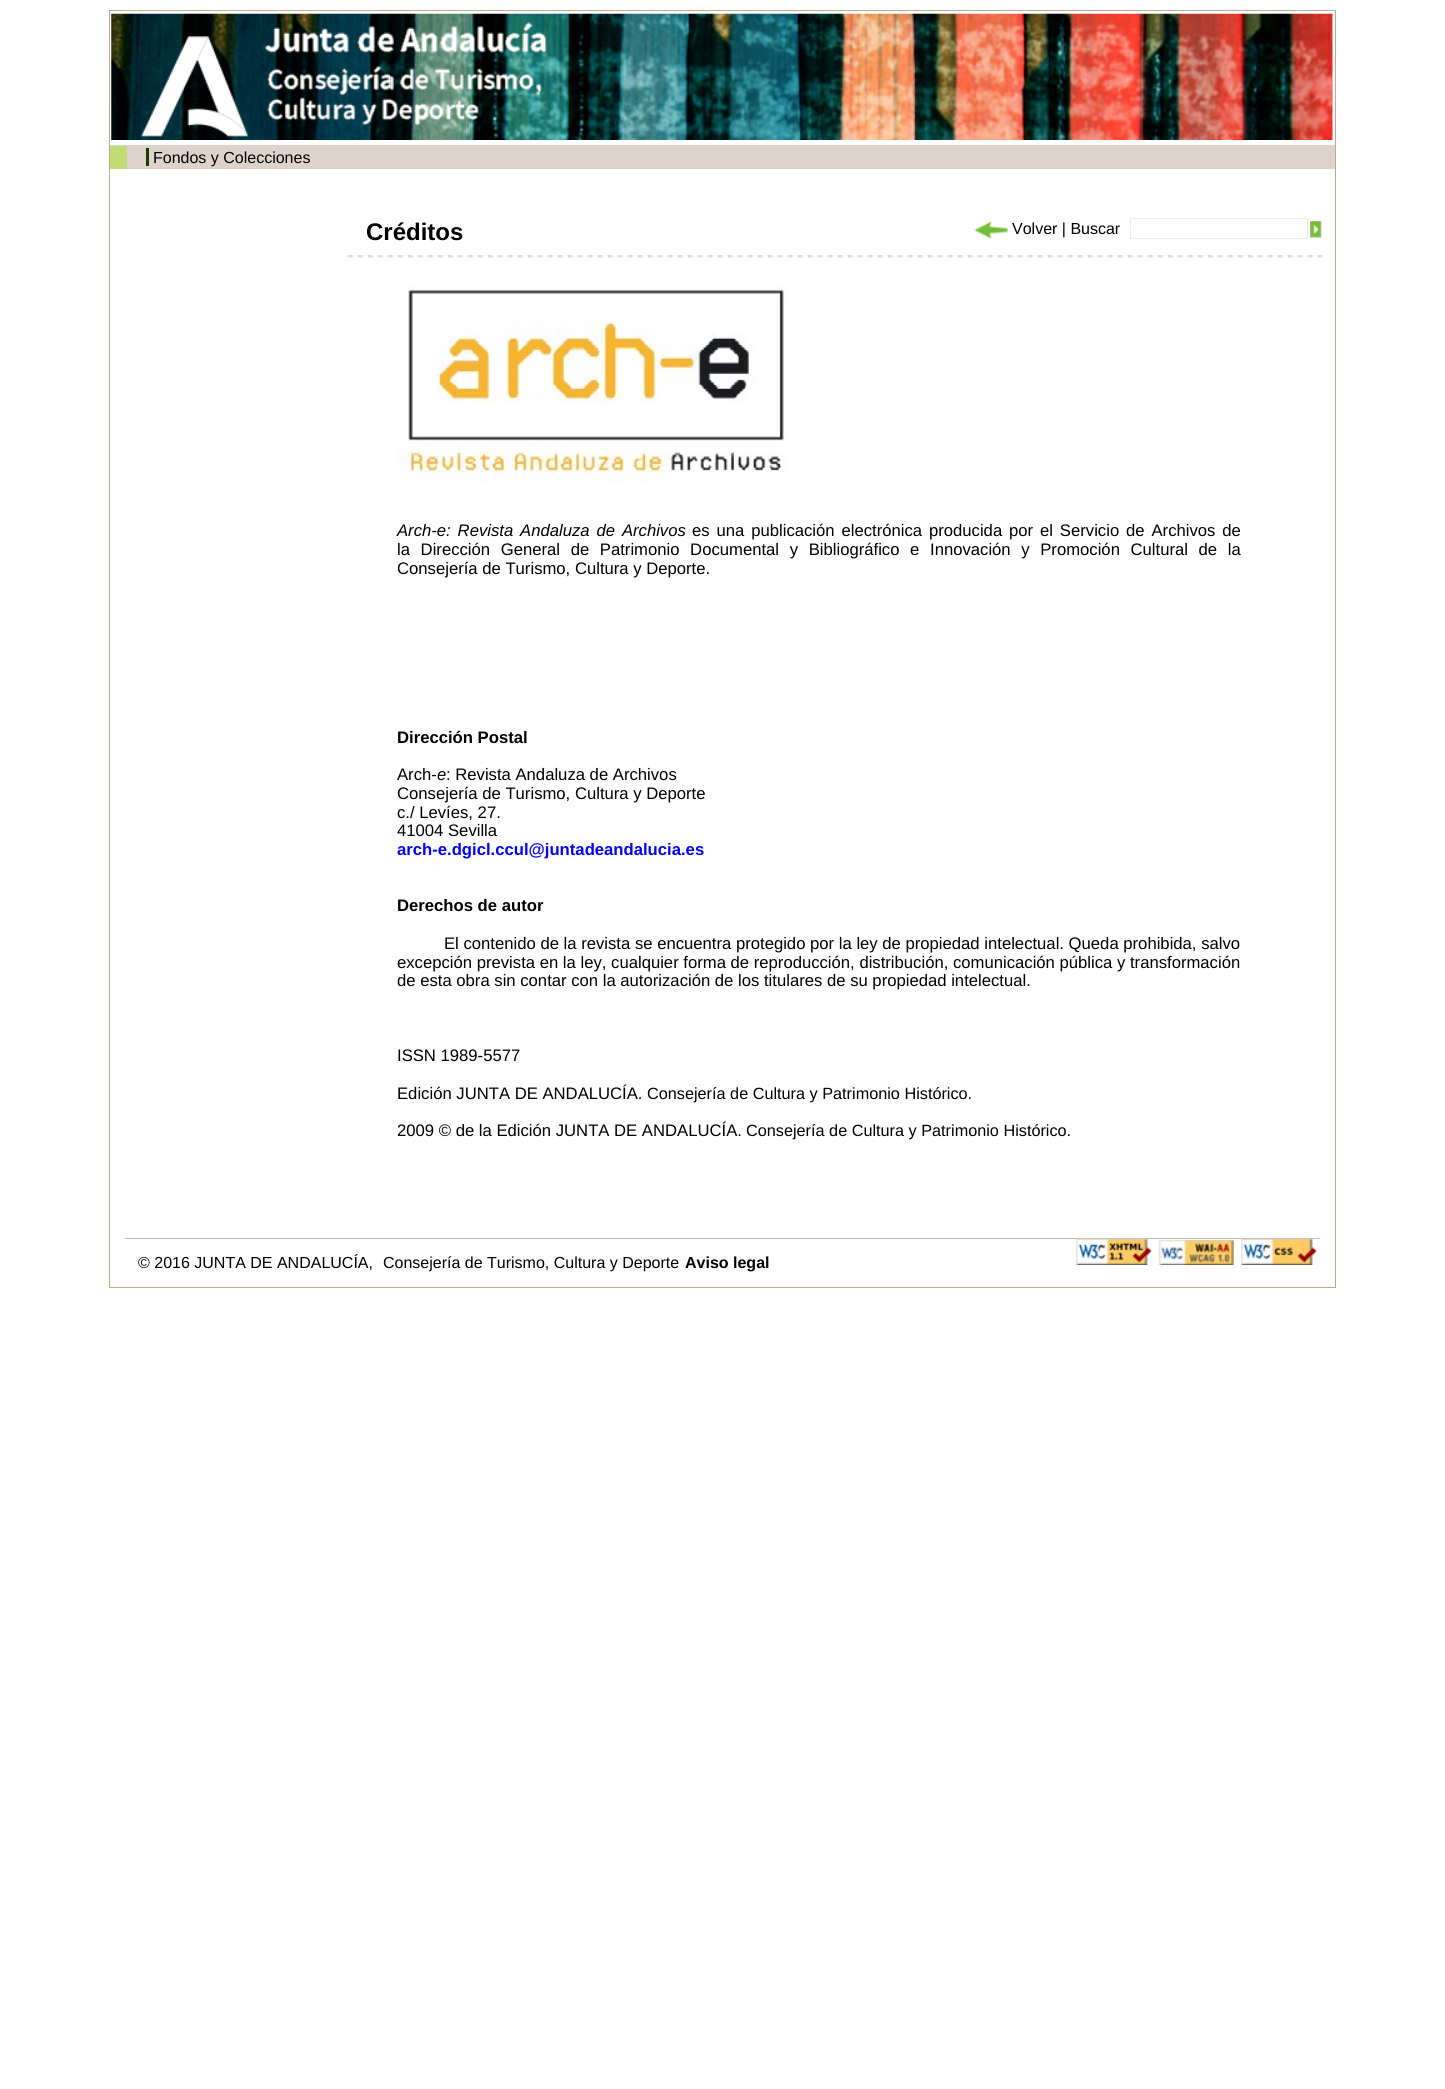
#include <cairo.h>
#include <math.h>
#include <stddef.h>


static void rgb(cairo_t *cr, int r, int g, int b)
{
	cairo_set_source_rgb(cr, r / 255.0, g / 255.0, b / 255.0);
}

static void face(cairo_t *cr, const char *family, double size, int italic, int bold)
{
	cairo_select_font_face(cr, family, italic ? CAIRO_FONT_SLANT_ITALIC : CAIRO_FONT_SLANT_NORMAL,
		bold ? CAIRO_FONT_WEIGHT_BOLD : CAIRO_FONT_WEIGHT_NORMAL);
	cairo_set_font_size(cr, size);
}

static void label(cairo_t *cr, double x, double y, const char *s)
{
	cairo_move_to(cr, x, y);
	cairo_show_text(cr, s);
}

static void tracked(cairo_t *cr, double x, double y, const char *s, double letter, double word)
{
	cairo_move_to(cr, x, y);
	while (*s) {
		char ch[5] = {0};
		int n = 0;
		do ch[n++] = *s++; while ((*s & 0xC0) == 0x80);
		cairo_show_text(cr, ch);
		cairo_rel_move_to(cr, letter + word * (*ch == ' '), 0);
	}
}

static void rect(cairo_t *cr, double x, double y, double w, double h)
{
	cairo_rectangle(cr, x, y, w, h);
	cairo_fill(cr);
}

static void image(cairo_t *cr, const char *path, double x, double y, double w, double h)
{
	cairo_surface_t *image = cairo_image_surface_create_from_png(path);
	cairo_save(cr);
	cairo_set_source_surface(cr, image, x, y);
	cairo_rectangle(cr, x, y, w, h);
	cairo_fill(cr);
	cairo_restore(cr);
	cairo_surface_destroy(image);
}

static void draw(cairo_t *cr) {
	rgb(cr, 255, 255, 255);
	cairo_paint(cr);
	cairo_rectangle(cr, 109.5, 10.5, 1226, 1277);
	rgb(cr, 191, 170, 143);
	cairo_set_line_width(cr, 1);
	cairo_stroke(cr);
	image(cr, "image0.png", 111, 13, 1222, 127);
	image(cr, "image1.png", 141, 36, 108, 101);
	image(cr, "image2.png", 264, 22, 283, 104);
	rgb(cr, 221, 211, 203);
	rect(cr, 110, 145, 1225, 24);
	rgb(cr, 193, 219, 117);
	rect(cr, 110, 146, 17, 23);
	rgb(cr, 20, 61, 3);
	rect(cr, 146, 148, 3, 18);
	face(cr, "Liberation Sans", 16, 0, 0);
	rgb(cr, 0, 0, 0);
	label(cr, 153, 163, "Fondos y Colecciones");
	face(cr, "Liberation Sans", 24, 0, 1);
	label(cr, 366, 240, "Créditos");
	image(cr, "image3.png", 973, 221, 35, 18);
	face(cr, "Liberation Sans", 16, 0, 0);
	label(cr, 1012, 234, "Volver | Buscar");
	cairo_rectangle(cr, 1130.5, 218.5, 177, 20);
	rgb(cr, 239, 234, 228);
	cairo_stroke(cr);
	image(cr, "image4.png", 1310, 221, 12, 17);
	image(cr, "image5.png", 347, 255, 976, 3);
	image(cr, "image6.png", 397, 284, 390, 199);
	face(cr, "Liberation Sans", 16.67, 1, 0);
	rgb(cr, 0, 0, 0);
	tracked(cr, 397, 536, "Arch-e: Revista Andaluza de Archivos", 0, 2.25);
	face(cr, "Liberation Sans", 16.67, 0, 0);
	tracked(cr, 692, 536, "es una publicación electrónica producida por el Servicio de Archivos de", 0, 2.25);
	tracked(cr, 397, 555, "la Dirección General de Patrimonio Documental y Bibliográfico e Innovación y Promoción Cultural de la", 0, 6);
	label(cr, 397, 574, "Consejería de Turismo, Cultura y Deporte.");
	face(cr, "Liberation Sans", 16.67, 0, 1);
	label(cr, 397, 743, "Dirección Postal");
	face(cr, "Liberation Sans", 16.67, 0, 0);
	label(cr, 397, 780, "Arch-");
	face(cr, "Liberation Sans", 16.67, 1, 0);
	label(cr, 437, 780, "e");
	face(cr, "Liberation Sans", 16.67, 0, 0);
	label(cr, 446, 780, ": Revista Andaluza de Archivos");
	label(cr, 397, 799, "Consejería de Turismo, Cultura y Deporte");
	label(cr, 397, 818, "c./ Levíes, 27.");
	label(cr, 397, 836, "41004 Sevilla");
	face(cr, "Liberation Sans", 16.67, 0, 1);
	rgb(cr, 0, 0, 255);
	label(cr, 397, 855, "arch-e.dgicl.ccul@juntadeandalucia.es");
	rgb(cr, 0, 0, 0);
	label(cr, 397, 911, "Derechos de autor");
	face(cr, "Liberation Sans", 16.67, 0, 0);
	label(cr, 444, 949, "El contenido de la revista se encuentra protegido por la ley de propiedad intelectual. Queda prohibida, salvo");
	label(cr, 397, 968, "excepción prevista en la ley, cualquier forma de reproducción, distribución, comunicación pública y transformación");
	label(cr, 397, 986, "de esta obra sin contar con la autorización de los titulares de su propiedad intelectual.");
	label(cr, 397, 1061, "ISSN 1989-5577");
	label(cr, 397, 1099, "Edición JUNTA DE ANDALUCÍA.");
	face(cr, "Liberation Sans", 16.25, 0, 0);
	label(cr, 647, 1099, "Consejería de Cultura y Patrimonio Histórico.");
	face(cr, "Liberation Sans", 16.67, 0, 0);
	label(cr, 397, 1136, "2009 © de la Edición JUNTA DE ANDALUCÍA.");
	face(cr, "Liberation Sans", 16.25, 0, 0);
	label(cr, 746, 1136, "Consejería de Cultura y Patrimonio Histórico.");
	rgb(cr, 203, 185, 165);
	rect(cr, 125, 1238, 1195, 1);
	face(cr, "Liberation Sans", 16, 0, 0);
	rgb(cr, 0, 0, 0);
	label(cr, 138, 1268, "© 2016 JUNTA DE ANDALUCÍA,");
	label(cr, 383, 1268, "Consejería de Turismo, Cultura y Deporte");
	face(cr, "Liberation Sans", 16, 0, 1);
	label(cr, 685, 1268, "Aviso legal");
	image(cr, "image7.png", 1076, 1238, 76, 27);
	image(cr, "image8.png", 1158, 1240, 76, 25);
	image(cr, "image9.png", 1241, 1238, 76, 27);
}

int main(void) {
	cairo_surface_t *surface = cairo_image_surface_create(CAIRO_FORMAT_RGB24, 1445, 2089);
	cairo_t *cr = cairo_create(surface);
	cairo_font_options_t *options = cairo_font_options_create();
	cairo_font_options_set_hint_metrics(options, CAIRO_HINT_METRICS_OFF);
	cairo_font_options_set_hint_style(options, CAIRO_HINT_STYLE_NONE);
	cairo_set_font_options(cr, options);
	cairo_set_miter_limit(cr, 4);
	draw(cr);
	cairo_surface_write_to_png(surface, "render.png");
	cairo_font_options_destroy(options);
	cairo_destroy(cr);
	cairo_surface_destroy(surface);
	return 0;
}
